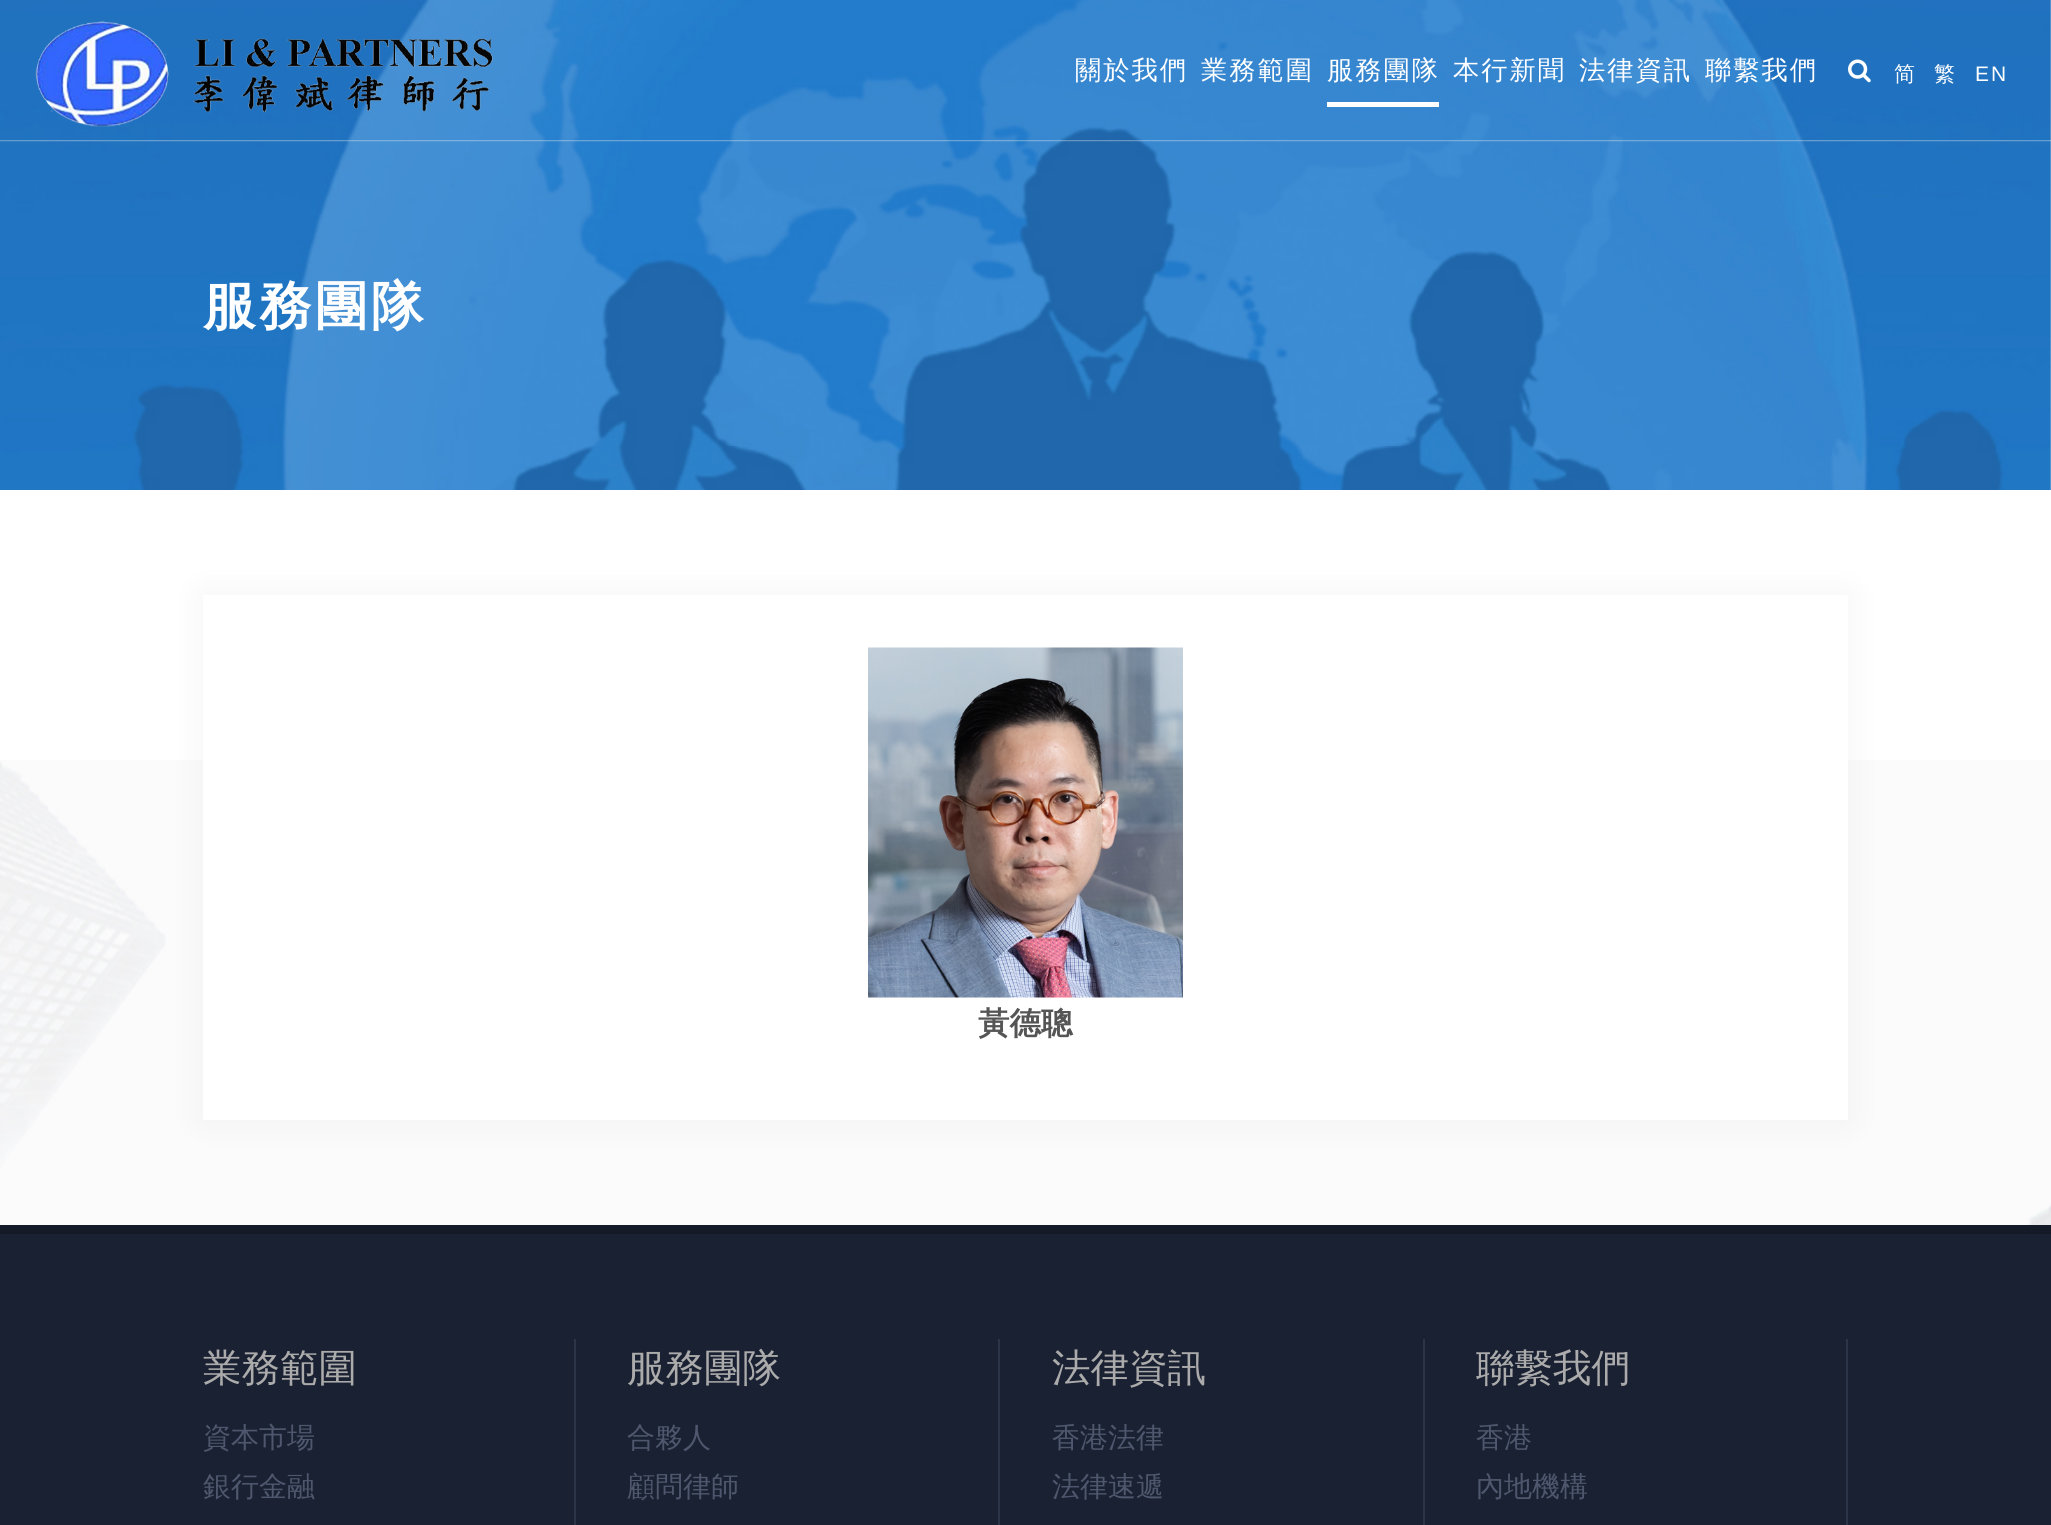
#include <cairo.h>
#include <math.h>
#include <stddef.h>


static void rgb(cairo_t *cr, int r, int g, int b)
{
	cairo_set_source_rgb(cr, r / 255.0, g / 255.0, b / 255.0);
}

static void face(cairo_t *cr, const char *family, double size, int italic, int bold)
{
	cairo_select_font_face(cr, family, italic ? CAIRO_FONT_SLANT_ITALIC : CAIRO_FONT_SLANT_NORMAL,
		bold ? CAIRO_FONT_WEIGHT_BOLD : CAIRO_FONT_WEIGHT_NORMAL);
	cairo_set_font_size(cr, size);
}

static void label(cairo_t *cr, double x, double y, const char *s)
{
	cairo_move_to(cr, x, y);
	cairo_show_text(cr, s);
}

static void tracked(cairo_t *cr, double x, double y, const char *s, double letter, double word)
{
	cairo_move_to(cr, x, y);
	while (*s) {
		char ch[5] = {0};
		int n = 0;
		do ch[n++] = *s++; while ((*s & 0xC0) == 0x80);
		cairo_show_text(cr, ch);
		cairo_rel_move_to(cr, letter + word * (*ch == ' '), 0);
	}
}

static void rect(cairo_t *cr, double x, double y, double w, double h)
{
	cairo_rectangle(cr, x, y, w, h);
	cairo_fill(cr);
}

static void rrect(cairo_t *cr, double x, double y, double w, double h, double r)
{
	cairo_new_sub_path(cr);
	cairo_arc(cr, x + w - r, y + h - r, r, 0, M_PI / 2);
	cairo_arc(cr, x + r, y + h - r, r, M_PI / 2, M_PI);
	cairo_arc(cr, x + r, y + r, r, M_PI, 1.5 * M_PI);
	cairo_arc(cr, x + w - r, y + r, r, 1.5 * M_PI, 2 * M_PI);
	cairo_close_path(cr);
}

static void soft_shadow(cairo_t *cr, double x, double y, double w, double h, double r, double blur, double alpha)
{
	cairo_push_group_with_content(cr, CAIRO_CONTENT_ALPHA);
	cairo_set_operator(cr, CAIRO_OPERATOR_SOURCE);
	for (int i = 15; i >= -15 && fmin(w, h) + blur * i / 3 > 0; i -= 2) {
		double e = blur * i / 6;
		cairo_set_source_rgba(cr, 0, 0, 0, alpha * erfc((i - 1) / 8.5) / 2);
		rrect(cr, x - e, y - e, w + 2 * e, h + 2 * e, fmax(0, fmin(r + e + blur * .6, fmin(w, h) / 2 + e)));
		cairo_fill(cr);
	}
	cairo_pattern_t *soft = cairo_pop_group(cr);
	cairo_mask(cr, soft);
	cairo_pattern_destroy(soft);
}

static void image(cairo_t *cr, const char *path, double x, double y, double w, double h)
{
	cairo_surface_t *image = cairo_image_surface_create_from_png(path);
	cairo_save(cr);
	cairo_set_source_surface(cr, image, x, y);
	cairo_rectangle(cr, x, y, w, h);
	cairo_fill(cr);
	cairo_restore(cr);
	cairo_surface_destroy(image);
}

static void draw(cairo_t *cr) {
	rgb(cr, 255, 255, 255);
	cairo_paint(cr);
	image(cr, "image2.png", 0, 0, 2051, 490);
	cairo_save(cr);
	cairo_rectangle(cr, 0, 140, 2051, 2);
	cairo_clip(cr);
	rgb(cr, 238, 238, 238);
	soft_shadow(cr, 0, 0, 2051, 140, 0, 1, 1);
	cairo_restore(cr);
	image(cr, "image0.png", 35, 21, 458, 106);
	face(cr, "WenQuanYi Zen Hei Medium", 26.25, 0, 0);
	rgb(cr, 255, 255, 255);
	tracked(cr, 1075, 79, "關於我們", 2, 0);
	tracked(cr, 1201, 79, "業務範圍", 2, 0);
	tracked(cr, 1327, 79, "服務團隊", 2, 0);
	rect(cr, 1327, 102, 112, 5);
	tracked(cr, 1453, 79, "本行新聞", 2, 0);
	tracked(cr, 1579, 79, "法律資訊", 2, 0);
	tracked(cr, 1705, 79, "聯繫我們", 2, 0);
	image(cr, "image1.png", 1848, 59, 23, 24);
	face(cr, "WenQuanYi Zen Hei Medium", 21, 0, 0);
	tracked(cr, 1894, 81, "简", 2, 0);
	tracked(cr, 1934, 81, "繁", 2, 0);
	face(cr, "Liberation Sans", 21, 0, 0);
	tracked(cr, 1975, 81, "EN", 2, 0);
	face(cr, "WenQuanYi Zen Hei", 52.5, 0, 1);
	tracked(cr, 203, 324, "服務團隊", 3.5, 0);
	image(cr, "image3.png", 0, 760, 2051, 465);
	rgb(cr, 204, 204, 204);
	soft_shadow(cr, 203, 595, 1645, 525, 0, 17.5, 0.21);
	rgb(cr, 255, 255, 255);
	rect(cr, 203, 595, 1645, 525);
	image(cr, "image4.png", 868, 647, 315, 351);
	face(cr, "WenQuanYi Zen Hei", 31.5, 0, 1);
	rgb(cr, 85, 85, 85);
	label(cr, 978, 1034, "黃德聰");
	rgb(cr, 26, 33, 50);
	rect(cr, 0, 1234, 2051, 291);
	rgb(cr, 21, 26, 40);
	rect(cr, 0, 1225, 2051, 9);
	rgb(cr, 44, 52, 71);
	rect(cr, 574, 1339, 2, 186);
	face(cr, "WenQuanYi Zen Hei Medium", 38.5, 0, 0);
	rgb(cr, 171, 171, 171);
	label(cr, 203, 1381, "業務範圍");
	face(cr, "WenQuanYi Zen Hei Medium", 28, 0, 0);
	rgb(cr, 78, 87, 109);
	label(cr, 203, 1447, "資本市場");
	label(cr, 203, 1496, "銀行金融");
	rgb(cr, 44, 52, 71);
	rect(cr, 998, 1339, 2, 186);
	face(cr, "WenQuanYi Zen Hei Medium", 38.5, 0, 0);
	rgb(cr, 171, 171, 171);
	label(cr, 627, 1381, "服務團隊");
	face(cr, "WenQuanYi Zen Hei Medium", 28, 0, 0);
	rgb(cr, 78, 87, 109);
	label(cr, 627, 1447, "合夥人");
	label(cr, 627, 1496, "顧問律師");
	rgb(cr, 44, 52, 71);
	rect(cr, 1423, 1339, 2, 186);
	face(cr, "WenQuanYi Zen Hei Medium", 38.5, 0, 0);
	rgb(cr, 171, 171, 171);
	label(cr, 1052, 1381, "法律資訊");
	face(cr, "WenQuanYi Zen Hei Medium", 28, 0, 0);
	rgb(cr, 78, 87, 109);
	label(cr, 1052, 1447, "香港法律");
	label(cr, 1052, 1496, "法律速遞");
	rgb(cr, 44, 52, 71);
	rect(cr, 1846, 1339, 2, 186);
	face(cr, "WenQuanYi Zen Hei Medium", 38.5, 0, 0);
	rgb(cr, 171, 171, 171);
	label(cr, 1476, 1381, "聯繫我們");
	face(cr, "WenQuanYi Zen Hei Medium", 28, 0, 0);
	rgb(cr, 78, 87, 109);
	label(cr, 1476, 1447, "香港");
	label(cr, 1476, 1496, "內地機構");
}

int main(void) {
	cairo_surface_t *surface = cairo_image_surface_create(CAIRO_FORMAT_RGB24, 2051, 1525);
	cairo_t *cr = cairo_create(surface);
	cairo_font_options_t *options = cairo_font_options_create();
	cairo_font_options_set_hint_metrics(options, CAIRO_HINT_METRICS_OFF);
	cairo_font_options_set_hint_style(options, CAIRO_HINT_STYLE_NONE);
	cairo_set_font_options(cr, options);
	cairo_set_miter_limit(cr, 4);
	draw(cr);
	cairo_surface_write_to_png(surface, "render.png");
	cairo_font_options_destroy(options);
	cairo_destroy(cr);
	cairo_surface_destroy(surface);
	return 0;
}
